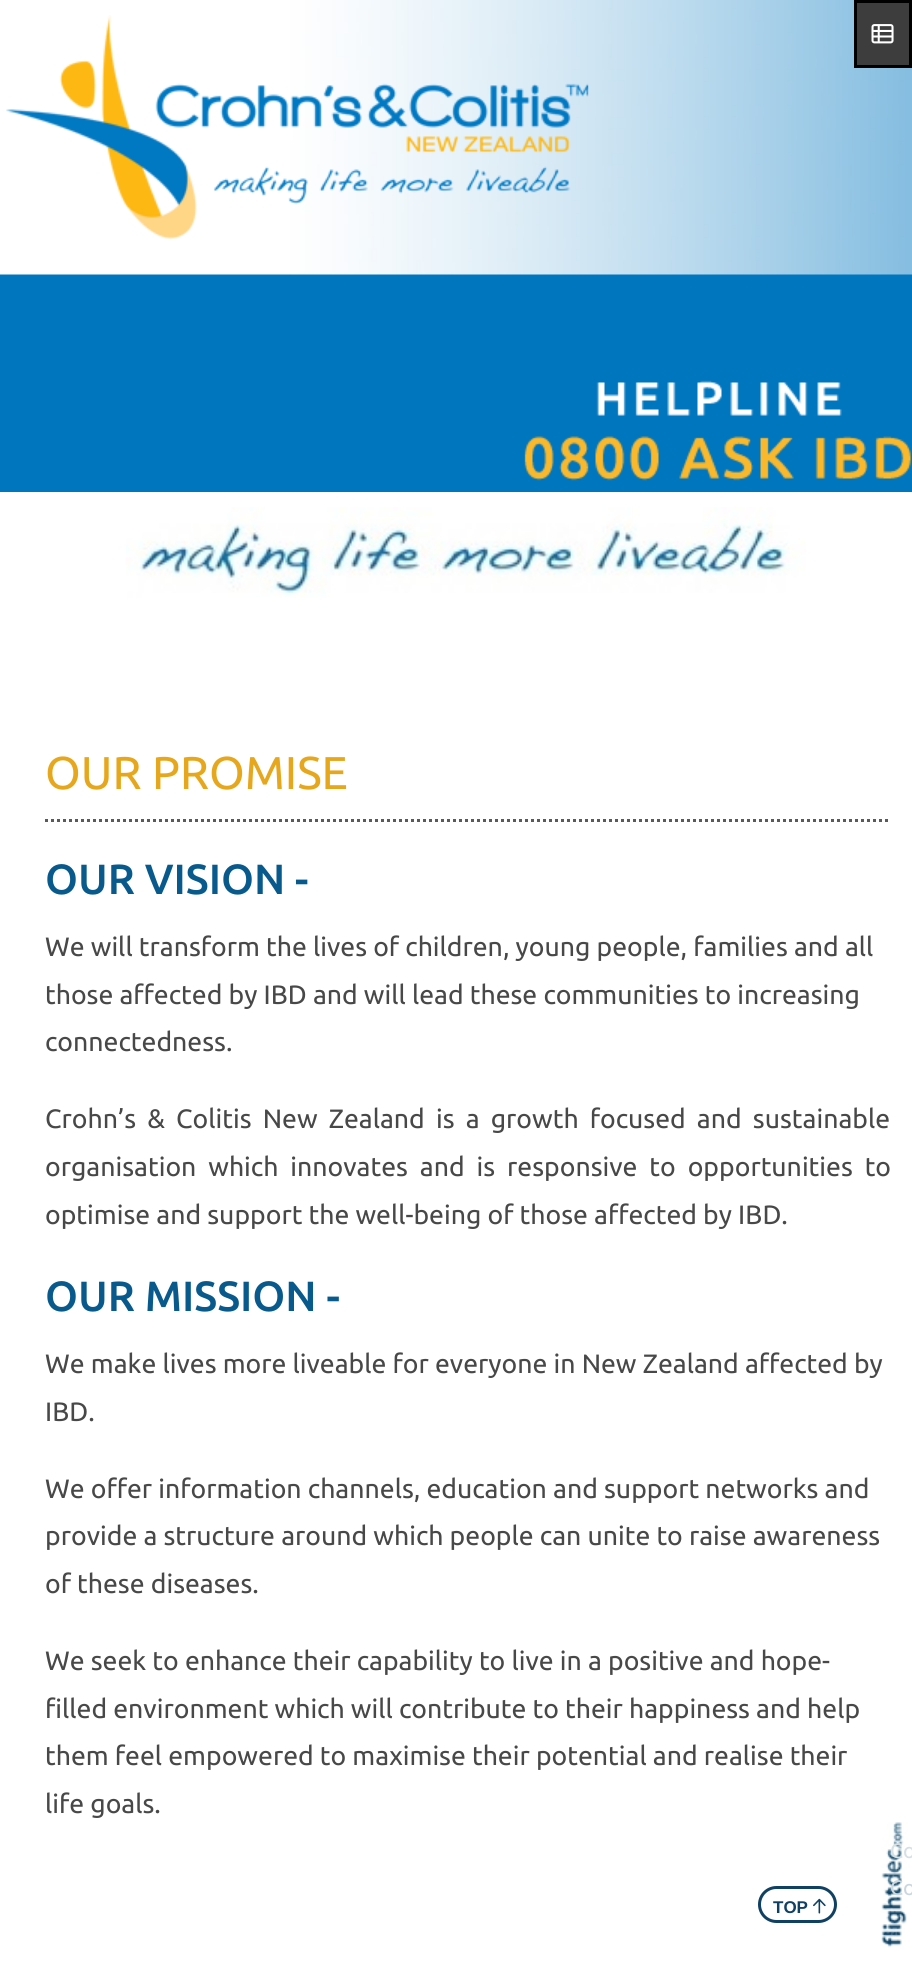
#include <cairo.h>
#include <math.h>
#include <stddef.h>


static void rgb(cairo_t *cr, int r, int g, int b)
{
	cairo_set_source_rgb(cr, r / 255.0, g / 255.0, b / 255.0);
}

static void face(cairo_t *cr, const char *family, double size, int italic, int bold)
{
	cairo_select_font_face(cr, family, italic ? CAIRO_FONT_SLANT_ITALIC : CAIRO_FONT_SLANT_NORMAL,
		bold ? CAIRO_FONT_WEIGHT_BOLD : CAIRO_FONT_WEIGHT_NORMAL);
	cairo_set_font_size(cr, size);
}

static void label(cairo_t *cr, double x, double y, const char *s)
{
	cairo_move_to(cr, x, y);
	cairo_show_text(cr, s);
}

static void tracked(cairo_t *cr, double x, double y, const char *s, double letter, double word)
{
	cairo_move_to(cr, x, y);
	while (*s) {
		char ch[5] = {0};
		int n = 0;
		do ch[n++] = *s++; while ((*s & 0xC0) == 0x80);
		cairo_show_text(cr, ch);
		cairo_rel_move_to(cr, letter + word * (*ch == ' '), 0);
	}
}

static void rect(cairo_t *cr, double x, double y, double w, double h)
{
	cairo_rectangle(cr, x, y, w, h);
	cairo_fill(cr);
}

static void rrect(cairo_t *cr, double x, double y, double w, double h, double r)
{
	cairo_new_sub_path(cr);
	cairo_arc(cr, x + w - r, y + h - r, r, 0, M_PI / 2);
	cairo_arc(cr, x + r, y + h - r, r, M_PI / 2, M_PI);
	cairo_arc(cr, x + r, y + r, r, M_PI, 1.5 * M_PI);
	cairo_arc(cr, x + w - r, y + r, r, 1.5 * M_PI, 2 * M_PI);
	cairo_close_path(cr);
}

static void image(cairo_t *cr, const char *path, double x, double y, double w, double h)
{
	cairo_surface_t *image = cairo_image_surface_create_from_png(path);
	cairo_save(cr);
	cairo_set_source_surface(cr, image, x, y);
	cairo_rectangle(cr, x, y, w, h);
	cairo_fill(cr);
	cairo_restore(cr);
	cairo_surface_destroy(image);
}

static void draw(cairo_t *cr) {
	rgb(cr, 255, 255, 255);
	cairo_paint(cr);
	rgb(cr, 0, 118, 190);
	rect(cr, 0, 274, 912, 218);
	image(cr, "image0.png", 0, 0, 912, 275);
	image(cr, "image1.png", 6, 15, 583, 224);
	rgb(cr, 61, 61, 61);
	cairo_rectangle(cr, 855.5, 1.5, 55, 65);
	cairo_fill_preserve(cr);
	rgb(cr, 0, 0, 0);
	cairo_set_line_width(cr, 3);
	cairo_stroke(cr);
	image(cr, "image2.png", 871, 24, 23, 20);
	image(cr, "image3.png", 524, 380, 387, 101);
	image(cr, "image4.png", 126, 507, 680, 91);
	cairo_new_path(cr);
	cairo_move_to(cr, 45, 820.5);
	cairo_line_to(cr, 889.5, 820.5);
	rgb(cr, 91, 90, 90);
	cairo_set_dash(cr, (double[]){3, 3}, 2, 0);
	cairo_stroke(cr);
	face(cr, "Ubuntu", 46, 0, 0);
	rgb(cr, 231, 167, 29);
	label(cr, 45, 789, "OUR PROMISE");
	face(cr, "Ubuntu Medium", 42.25, 0, 0);
	rgb(cr, 9, 90, 140);
	label(cr, 45, 894, "OUR VISION -");
	face(cr, "Ubuntu", 26.6, 0, 0);
	rgb(cr, 73, 72, 72);
	label(cr, 45, 956, "We will transform the lives of children, young people, families and all");
	label(cr, 45, 1004, "those affected by IBD and will lead these communities to increasing");
	label(cr, 45, 1051, "connectedness.");
	tracked(cr, 45, 1128, "Crohn’s & Colitis New Zealand is a growth focused and sustainable", 0, 5);
	tracked(cr, 45, 1176, "organisation which innovates and is responsive to opportunities to", 0, 5.75);
	label(cr, 45, 1224, "optimise and support the well-being of those affected by IBD.");
	face(cr, "Ubuntu Medium", 42.25, 0, 0);
	rgb(cr, 9, 90, 140);
	label(cr, 45, 1311, "OUR MISSION -");
	face(cr, "Ubuntu", 26.6, 0, 0);
	rgb(cr, 73, 72, 72);
	label(cr, 45, 1373, "We make lives more liveable for everyone in New Zealand affected by");
	label(cr, 45, 1421, "IBD.");
	label(cr, 45, 1498, "We offer information channels, education and support networks and");
	label(cr, 45, 1545, "provide a structure around which people can unite to raise awareness");
	label(cr, 45, 1593, "of these diseases.");
	label(cr, 45, 1670, "We seek to enhance their capability to live in a positive and hope-");
	label(cr, 45, 1718, "filled environment which will contribute to their happiness and help");
	label(cr, 45, 1765, "them feel empowered to maximise their potential and realise their");
	label(cr, 45, 1813, "life goals.");
	image(cr, "image5.png", 881, 1822, 26, 126);
	face(cr, "Ubuntu", 21, 0, 0);
	rgb(cr, 214, 224, 229);
	label(cr, 890, 1858, "Co");
	rgb(cr, 203, 215, 222);
	label(cr, 890, 1895, "Co");
	rrect(cr, 759.5, 1887.5, 76, 34, 17);
	rgb(cr, 16, 65, 99);
	cairo_set_dash(cr, NULL, 0, 0);
	cairo_stroke(cr);
	face(cr, "Liberation Sans", 17, 0, 1);
	label(cr, 773, 1913, "TOP");
	image(cr, "image6.png", 813, 1898, 13, 16);
}

int main(void) {
	cairo_surface_t *surface = cairo_image_surface_create(CAIRO_FORMAT_RGB24, 912, 1967);
	cairo_t *cr = cairo_create(surface);
	cairo_font_options_t *options = cairo_font_options_create();
	cairo_font_options_set_hint_metrics(options, CAIRO_HINT_METRICS_OFF);
	cairo_font_options_set_hint_style(options, CAIRO_HINT_STYLE_NONE);
	cairo_set_font_options(cr, options);
	cairo_set_miter_limit(cr, 4);
	draw(cr);
	cairo_surface_write_to_png(surface, "render.png");
	cairo_font_options_destroy(options);
	cairo_destroy(cr);
	cairo_surface_destroy(surface);
	return 0;
}
